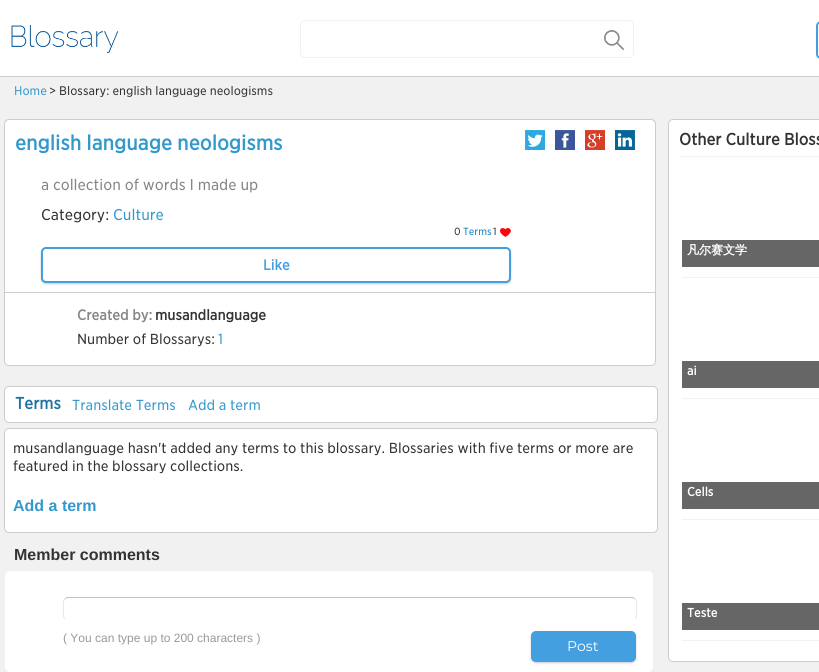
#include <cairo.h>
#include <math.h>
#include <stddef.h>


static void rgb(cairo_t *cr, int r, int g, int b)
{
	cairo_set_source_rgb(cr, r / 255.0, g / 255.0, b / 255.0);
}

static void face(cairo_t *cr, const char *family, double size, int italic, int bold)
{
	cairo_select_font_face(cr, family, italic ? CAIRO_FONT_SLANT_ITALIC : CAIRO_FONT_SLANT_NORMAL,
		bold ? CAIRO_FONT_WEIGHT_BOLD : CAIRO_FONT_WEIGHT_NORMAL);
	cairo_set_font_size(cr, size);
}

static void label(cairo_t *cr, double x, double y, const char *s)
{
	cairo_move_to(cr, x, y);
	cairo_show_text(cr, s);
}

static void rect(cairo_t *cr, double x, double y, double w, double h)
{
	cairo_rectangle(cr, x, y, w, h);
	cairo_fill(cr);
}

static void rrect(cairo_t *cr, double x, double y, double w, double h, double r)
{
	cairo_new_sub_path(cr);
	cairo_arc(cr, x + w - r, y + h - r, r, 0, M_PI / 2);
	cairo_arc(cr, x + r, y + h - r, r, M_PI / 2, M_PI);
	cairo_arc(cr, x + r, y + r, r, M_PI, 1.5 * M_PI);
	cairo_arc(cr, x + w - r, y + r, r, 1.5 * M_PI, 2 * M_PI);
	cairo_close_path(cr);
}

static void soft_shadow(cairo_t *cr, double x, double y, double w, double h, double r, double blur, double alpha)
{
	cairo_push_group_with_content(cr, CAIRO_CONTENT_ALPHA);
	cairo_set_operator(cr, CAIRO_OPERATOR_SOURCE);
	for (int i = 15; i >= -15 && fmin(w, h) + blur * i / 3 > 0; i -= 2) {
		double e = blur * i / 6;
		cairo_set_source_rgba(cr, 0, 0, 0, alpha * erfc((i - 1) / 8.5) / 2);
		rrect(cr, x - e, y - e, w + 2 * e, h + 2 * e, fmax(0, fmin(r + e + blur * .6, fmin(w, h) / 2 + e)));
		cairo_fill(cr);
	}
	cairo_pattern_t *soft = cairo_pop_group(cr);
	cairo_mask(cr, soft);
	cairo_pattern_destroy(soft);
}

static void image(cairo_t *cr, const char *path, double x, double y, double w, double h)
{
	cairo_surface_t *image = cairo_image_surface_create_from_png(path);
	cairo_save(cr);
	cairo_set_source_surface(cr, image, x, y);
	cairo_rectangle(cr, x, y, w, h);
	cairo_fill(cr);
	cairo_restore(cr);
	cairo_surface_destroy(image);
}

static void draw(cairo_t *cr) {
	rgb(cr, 241, 241, 241);
	cairo_paint(cr);
	rgb(cr, 255, 255, 255);
	rect(cr, 0, 0, 819, 76);
	rgb(cr, 205, 205, 205);
	rect(cr, 0, 76, 819, 1);
	image(cr, "image0.png", 11, 25, 108, 28);
	rrect(cr, 300.5, 20.5, 333, 37, 4.5);
	rgb(cr, 241, 241, 241);
	cairo_set_line_width(cr, 1);
	cairo_stroke(cr);
	image(cr, "image1.png", 604, 30, 20, 20);
	rrect(cr, 817, 22, 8, 36, 4);
	rgb(cr, 67, 159, 224);
	cairo_set_line_width(cr, 2);
	cairo_stroke(cr);
	face(cr, "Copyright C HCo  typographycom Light", 12, 0, 0);
	rgb(cr, 51, 153, 204);
	label(cr, 14, 95, "Home");
	rgb(cr, 51, 51, 51);
	label(cr, 49, 95, "> Blossary: english language neologisms");
	rgb(cr, 255, 255, 255);
	cairo_new_path(cr);
	cairo_move_to(cr, 9, 119);
	cairo_line_to(cr, 651, 119);
	cairo_curve_to(cr, 654, 119, 656, 121, 656, 124);
	cairo_line_to(cr, 656, 166);
	cairo_line_to(cr, 4, 166);
	cairo_line_to(cr, 4, 124);
	cairo_curve_to(cr, 4, 121, 6, 119, 9, 119);
	cairo_close_path(cr);
	cairo_fill(cr);
	rgb(cr, 205, 205, 205);
	cairo_set_fill_rule(cr, CAIRO_FILL_RULE_EVEN_ODD);
	cairo_new_path(cr);
	cairo_move_to(cr, 9, 119);
	cairo_line_to(cr, 651, 119);
	cairo_curve_to(cr, 654, 119, 656, 121, 656, 124);
	cairo_line_to(cr, 656, 166);
	cairo_line_to(cr, 4, 166);
	cairo_line_to(cr, 4, 124);
	cairo_curve_to(cr, 4, 121, 6, 119, 9, 119);
	cairo_close_path(cr);
	cairo_move_to(cr, 9, 120);
	cairo_line_to(cr, 651, 120);
	cairo_curve_to(cr, 653, 120, 655, 122, 655, 124);
	cairo_line_to(cr, 655, 166);
	cairo_line_to(cr, 5, 166);
	cairo_line_to(cr, 5, 124);
	cairo_curve_to(cr, 5, 122, 7, 120, 9, 120);
	cairo_close_path(cr);
	cairo_fill(cr);
	face(cr, "Copyright C HCo  typographycom", 20, 0, 1);
	rgb(cr, 51, 153, 204);
	label(cr, 15, 150, "english language neologisms");
	image(cr, "image2.png", 525, 130, 20, 20);
	image(cr, "image3.png", 555, 130, 20, 20);
	image(cr, "image4.png", 585, 130, 20, 20);
	image(cr, "image5.png", 615, 130, 20, 20);
	rgb(cr, 255, 255, 255);
	rect(cr, 5, 166, 650, 126);
	rgb(cr, 205, 205, 205);
	rect(cr, 655, 166, 1, 126);
	rect(cr, 4, 166, 1, 126);
	face(cr, "Copyright C HCo  typographycom Light", 15, 0, 0);
	rgb(cr, 134, 134, 134);
	label(cr, 41, 190, "a collection of words I made up");
	rgb(cr, 51, 51, 51);
	label(cr, 41, 220, "Category:");
	rgb(cr, 51, 153, 204);
	label(cr, 113, 220, "Culture");
	face(cr, "Copyright C HCo  typographycom Light", 10, 0, 0);
	rgb(cr, 51, 51, 51);
	label(cr, 454, 235, "0");
	rgb(cr, 18, 127, 194);
	label(cr, 463, 235, "Terms");
	rgb(cr, 51, 51, 51);
	label(cr, 493, 235, "1");
	image(cr, "image6.png", 500, 228, 11, 9);
	rgb(cr, 0, 0, 0);
	soft_shadow(cr, 41, 248, 470, 36, 5, 1, 0.2);
	rgb(cr, 255, 255, 255);
	rrect(cr, 42, 248, 468, 34, 4);
	cairo_fill_preserve(cr);
	rgb(cr, 67, 159, 224);
	cairo_stroke(cr);
	face(cr, "Copyright C HCo  typographycom", 14, 0, 1);
	label(cr, 263, 270, "Like");
	rgb(cr, 255, 255, 255);
	cairo_new_path(cr);
	cairo_move_to(cr, 4.5, 292.5);
	cairo_line_to(cr, 655.5, 292.5);
	cairo_line_to(cr, 655.5, 361);
	cairo_curve_to(cr, 655.5, 363.5, 653.5, 365.5, 651, 365.5);
	cairo_line_to(cr, 9, 365.5);
	cairo_curve_to(cr, 6.5, 365.5, 4.5, 363.5, 4.5, 361);
	cairo_close_path(cr);
	cairo_fill_preserve(cr);
	rgb(cr, 205, 205, 205);
	cairo_set_line_width(cr, 1);
	cairo_stroke(cr);
	rgb(cr, 134, 134, 134);
	label(cr, 77, 320, "Created by:");
	rgb(cr, 51, 51, 51);
	label(cr, 155, 320, "musandlanguage");
	face(cr, "Copyright C HCo  typographycom Light", 14, 0, 0);
	label(cr, 77, 344, "Number of Blossarys:");
	rgb(cr, 51, 153, 204);
	label(cr, 218, 344, "1");
	rgb(cr, 255, 255, 255);
	rrect(cr, 4.5, 386.5, 653, 36, 4.5);
	cairo_fill_preserve(cr);
	rgb(cr, 205, 205, 205);
	cairo_stroke(cr);
	face(cr, "Copyright C HCo  typographycom", 16, 0, 1);
	rgb(cr, 30, 114, 161);
	label(cr, 15, 409, "Terms");
	face(cr, "Copyright C HCo  typographycom Light", 14, 0, 0);
	rgb(cr, 51, 153, 204);
	label(cr, 72, 410, "Translate Terms");
	label(cr, 188, 410, "Add a term");
	rgb(cr, 255, 255, 255);
	rrect(cr, 4.5, 428.5, 653, 104, 4.5);
	cairo_fill_preserve(cr);
	rgb(cr, 205, 205, 205);
	cairo_stroke(cr);
	rgb(cr, 51, 51, 51);
	label(cr, 13, 453, "musandlanguage hasn't added any terms to this blossary. Blossaries with five terms or more are");
	label(cr, 13, 471, "featured in the blossary collections.");
	face(cr, "Liberation Sans", 16, 0, 1);
	rgb(cr, 51, 153, 204);
	label(cr, 13, 511, "Add a term");
	rgb(cr, 51, 51, 51);
	label(cr, 14, 560, "Member comments");
	rgb(cr, 255, 255, 255);
	rrect(cr, 5, 571, 648, 101, 5);
	cairo_fill(cr);
	cairo_new_path(cr);
	cairo_move_to(cr, 65, 599);
	cairo_curve_to(cr, 65.5, 598, 67, 597.5, 68, 597.5);
	cairo_line_to(cr, 632, 597.5);
	cairo_curve_to(cr, 633, 597.5, 634.5, 598, 635, 599);
	rgb(cr, 195, 195, 195);
	cairo_stroke(cr);
	cairo_new_path(cr);
	cairo_move_to(cr, 635, 599);
	cairo_curve_to(cr, 637.5, 601, 636.5, 606, 636.5, 609);
	cairo_curve_to(cr, 636.5, 612, 637.5, 617, 635, 619);
	rgb(cr, 230, 230, 230);
	cairo_stroke(cr);
	cairo_new_path(cr);
	cairo_move_to(cr, 65, 619);
	cairo_curve_to(cr, 62.5, 617, 63.5, 612, 63.5, 609);
	cairo_curve_to(cr, 63.5, 606, 62.5, 601, 65, 599);
	cairo_stroke(cr);
	face(cr, "Liberation Sans", 12, 0, 0);
	rgb(cr, 153, 153, 153);
	label(cr, 63, 642, "( You can type up to 200 characters )");
	rgb(cr, 0, 0, 0);
	soft_shadow(cr, 531, 632, 105, 31, 5, 1, 0.2);
	rgb(cr, 67, 159, 224);
	rrect(cr, 531, 631, 105, 31, 5);
	cairo_fill(cr);
	face(cr, "Montserrat", 14, 0, 0);
	rgb(cr, 255, 255, 255);
	label(cr, 567, 651, "Post");
	rrect(cr, 668.5, 119.5, 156, 542, 4.5);
	cairo_fill_preserve(cr);
	rgb(cr, 205, 205, 205);
	cairo_stroke(cr);
	rgb(cr, 242, 242, 242);
	rect(cr, 679, 156, 140, 1);
	face(cr, "Copyright C HCo  typographycom", 16, 0, 1);
	rgb(cr, 51, 51, 51);
	label(cr, 679, 145, "Other Culture Bloss");
	rgb(cr, 242, 241, 246);
	rect(cr, 682, 277, 137, 1);
	rgb(cr, 102, 102, 102);
	rect(cr, 682, 240, 137, 27);
	face(cr, "WenQuanYi Zen Hei", 12, 0, 1);
	rgb(cr, 255, 255, 255);
	label(cr, 687, 254, "凡尔赛文学");
	rgb(cr, 242, 241, 246);
	rect(cr, 682, 398, 137, 1);
	rgb(cr, 102, 102, 102);
	rect(cr, 682, 361, 137, 27);
	face(cr, "Copyright C HCo  typographycom", 12, 0, 1);
	rgb(cr, 255, 255, 255);
	label(cr, 687, 375, "ai");
	rgb(cr, 242, 241, 246);
	rect(cr, 682, 519, 137, 1);
	rgb(cr, 102, 102, 102);
	rect(cr, 682, 482, 137, 27);
	rgb(cr, 255, 255, 255);
	label(cr, 687, 496, "Cells");
	rgb(cr, 242, 241, 246);
	rect(cr, 682, 640, 137, 1);
	rgb(cr, 102, 102, 102);
	rect(cr, 682, 603, 137, 27);
	rgb(cr, 255, 255, 255);
	label(cr, 687, 617, "Teste");
}

int main(void) {
	cairo_surface_t *surface = cairo_image_surface_create(CAIRO_FORMAT_RGB24, 819, 672);
	cairo_t *cr = cairo_create(surface);
	cairo_font_options_t *options = cairo_font_options_create();
	cairo_font_options_set_hint_metrics(options, CAIRO_HINT_METRICS_OFF);
	cairo_font_options_set_hint_style(options, CAIRO_HINT_STYLE_NONE);
	cairo_set_font_options(cr, options);
	cairo_set_miter_limit(cr, 4);
	draw(cr);
	cairo_surface_write_to_png(surface, "render.png");
	cairo_font_options_destroy(options);
	cairo_destroy(cr);
	cairo_surface_destroy(surface);
	return 0;
}
